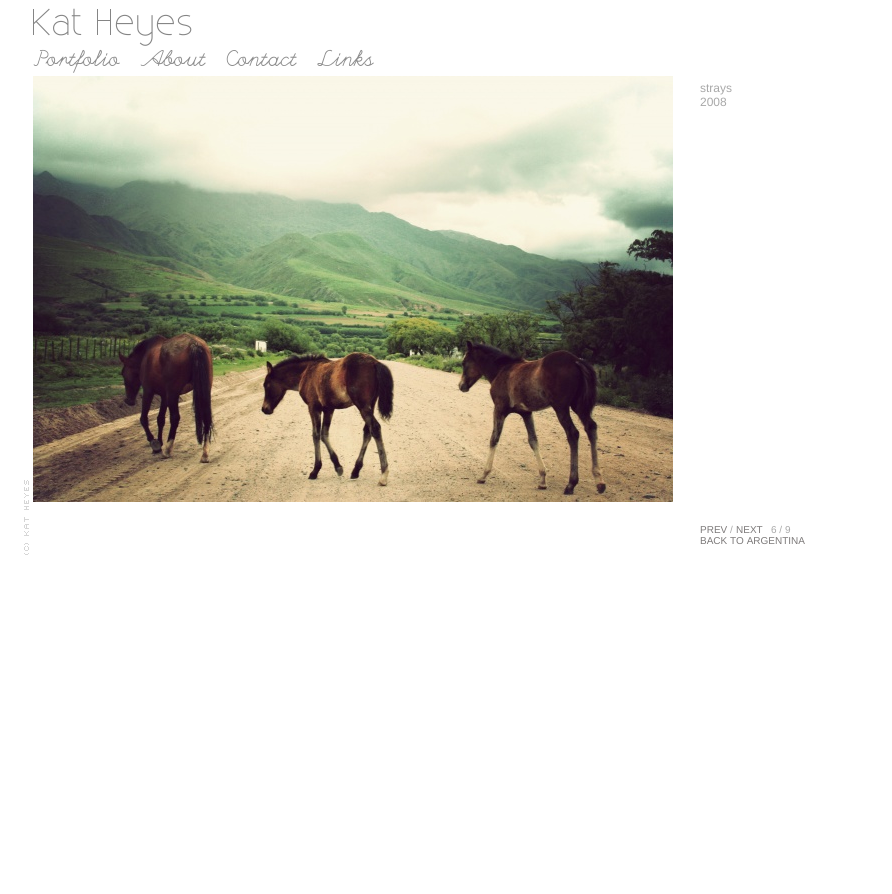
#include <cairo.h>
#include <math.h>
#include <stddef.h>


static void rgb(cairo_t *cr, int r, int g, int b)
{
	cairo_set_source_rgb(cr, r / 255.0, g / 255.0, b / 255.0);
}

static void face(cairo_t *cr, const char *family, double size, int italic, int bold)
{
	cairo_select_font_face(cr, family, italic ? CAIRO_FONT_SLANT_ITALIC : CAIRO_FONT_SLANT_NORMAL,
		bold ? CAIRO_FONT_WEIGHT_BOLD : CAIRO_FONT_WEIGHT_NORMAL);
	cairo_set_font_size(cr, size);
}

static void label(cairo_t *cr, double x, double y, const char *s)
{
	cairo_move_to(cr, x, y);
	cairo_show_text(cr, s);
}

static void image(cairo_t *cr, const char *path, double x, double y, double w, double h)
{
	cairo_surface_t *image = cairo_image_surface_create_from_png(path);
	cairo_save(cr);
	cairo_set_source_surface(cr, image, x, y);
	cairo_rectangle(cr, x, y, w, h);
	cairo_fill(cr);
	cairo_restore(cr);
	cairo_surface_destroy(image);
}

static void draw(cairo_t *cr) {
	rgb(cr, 255, 255, 255);
	cairo_paint(cr);
	image(cr, "image0.png", 33, 8, 159, 38);
	image(cr, "image1.png", 33, 49, 87, 24);
	image(cr, "image2.png", 140, 50, 66, 16);
	image(cr, "image3.png", 226, 50, 71, 16);
	image(cr, "image4.png", 317, 49, 57, 17);
	image(cr, "image5.png", 33, 76, 640, 426);
	face(cr, "Liberation Sans", 12, 0, 0);
	rgb(cr, 168, 168, 168);
	label(cr, 700, 92, "strays");
	label(cr, 700, 106, "2008");
	image(cr, "image6.png", 24, 480, 5, 75);
	face(cr, "Liberation Sans", 10, 0, 0);
	rgb(cr, 124, 121, 121);
	label(cr, 700, 533, "PREV");
	rgb(cr, 168, 168, 168);
	label(cr, 730, 533, "/");
	rgb(cr, 124, 121, 121);
	label(cr, 736, 533, "NEXT");
	rgb(cr, 168, 168, 168);
	label(cr, 771, 533, "6 / 9");
	rgb(cr, 124, 121, 121);
	label(cr, 700, 544, "BACK TO ARGENTINA");
}

int main(void) {
	cairo_surface_t *surface = cairo_image_surface_create(CAIRO_FORMAT_RGB24, 892, 894);
	cairo_t *cr = cairo_create(surface);
	cairo_font_options_t *options = cairo_font_options_create();
	cairo_font_options_set_hint_metrics(options, CAIRO_HINT_METRICS_OFF);
	cairo_font_options_set_hint_style(options, CAIRO_HINT_STYLE_NONE);
	cairo_set_font_options(cr, options);
	cairo_set_miter_limit(cr, 4);
	draw(cr);
	cairo_surface_write_to_png(surface, "render.png");
	cairo_font_options_destroy(options);
	cairo_destroy(cr);
	cairo_surface_destroy(surface);
	return 0;
}
